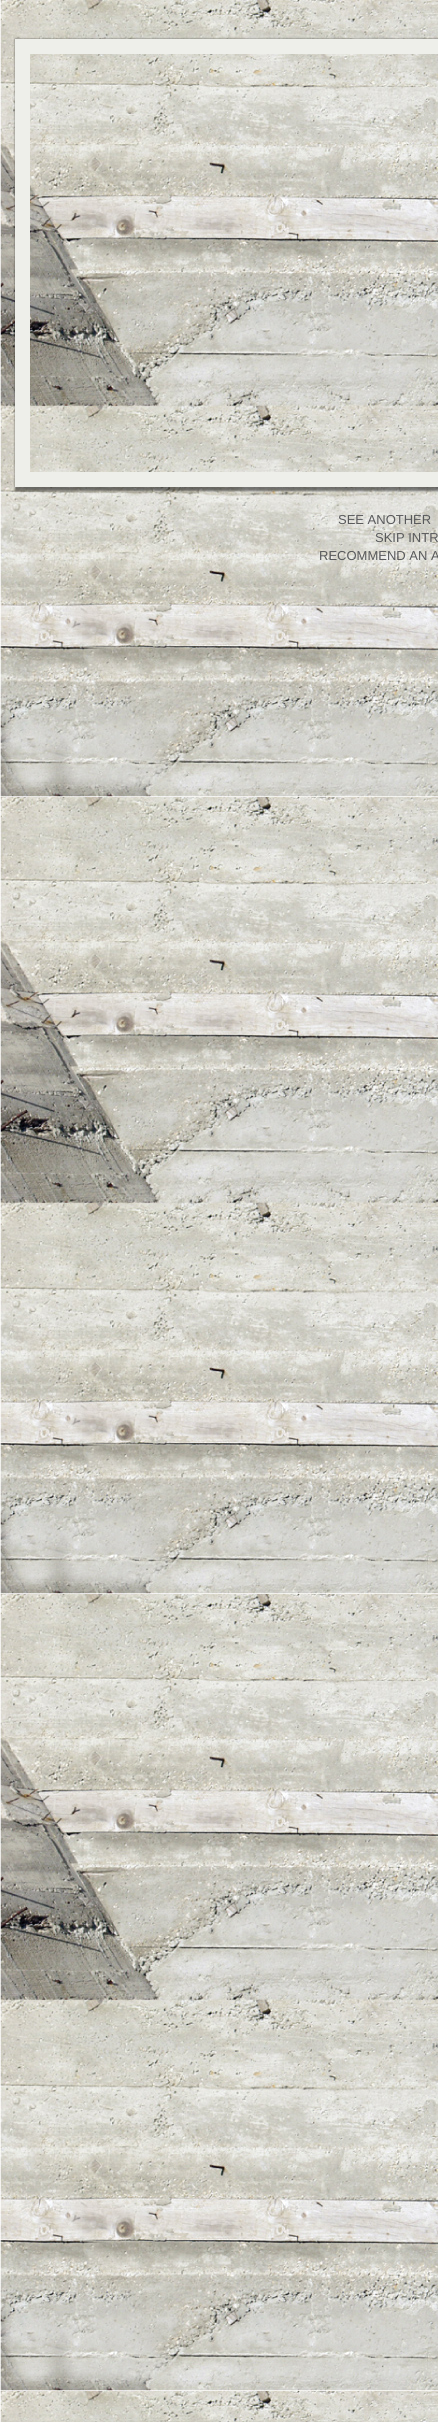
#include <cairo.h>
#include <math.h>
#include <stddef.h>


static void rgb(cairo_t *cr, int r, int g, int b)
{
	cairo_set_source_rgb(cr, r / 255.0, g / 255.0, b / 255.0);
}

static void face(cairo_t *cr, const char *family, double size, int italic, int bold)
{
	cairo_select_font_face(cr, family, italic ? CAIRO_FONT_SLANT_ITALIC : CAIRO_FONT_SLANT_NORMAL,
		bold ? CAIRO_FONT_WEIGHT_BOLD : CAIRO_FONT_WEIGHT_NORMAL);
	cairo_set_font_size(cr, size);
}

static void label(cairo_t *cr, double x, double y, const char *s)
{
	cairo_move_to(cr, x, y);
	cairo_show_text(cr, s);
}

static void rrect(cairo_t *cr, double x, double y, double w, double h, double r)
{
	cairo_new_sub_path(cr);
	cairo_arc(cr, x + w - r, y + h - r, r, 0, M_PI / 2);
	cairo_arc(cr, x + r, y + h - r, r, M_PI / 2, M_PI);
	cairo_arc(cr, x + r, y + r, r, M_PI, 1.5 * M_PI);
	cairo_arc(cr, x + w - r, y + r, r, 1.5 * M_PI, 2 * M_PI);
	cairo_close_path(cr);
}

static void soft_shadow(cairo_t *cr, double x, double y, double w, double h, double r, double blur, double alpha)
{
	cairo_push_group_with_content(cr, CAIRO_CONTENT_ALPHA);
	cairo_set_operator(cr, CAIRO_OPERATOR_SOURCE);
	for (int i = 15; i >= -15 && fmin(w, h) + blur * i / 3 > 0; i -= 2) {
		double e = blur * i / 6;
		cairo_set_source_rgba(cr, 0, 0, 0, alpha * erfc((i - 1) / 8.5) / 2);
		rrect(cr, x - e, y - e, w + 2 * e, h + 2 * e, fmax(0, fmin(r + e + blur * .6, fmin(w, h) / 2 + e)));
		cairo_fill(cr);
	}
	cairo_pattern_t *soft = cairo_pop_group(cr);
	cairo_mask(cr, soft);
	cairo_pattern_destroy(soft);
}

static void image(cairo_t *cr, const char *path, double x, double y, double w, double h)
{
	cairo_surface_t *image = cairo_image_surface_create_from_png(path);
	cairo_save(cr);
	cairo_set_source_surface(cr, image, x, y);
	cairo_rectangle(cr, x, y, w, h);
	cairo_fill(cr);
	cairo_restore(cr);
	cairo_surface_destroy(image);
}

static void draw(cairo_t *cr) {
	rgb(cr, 255, 255, 255);
	cairo_paint(cr);
	image(cr, "image0.png", 0, 0, 438, 2422);
	cairo_save(cr);
	cairo_set_fill_rule(cr, CAIRO_FILL_RULE_EVEN_ODD);
	cairo_new_path(cr);
	cairo_move_to(cr, 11, 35);
	cairo_line_to(cr, 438, 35);
	cairo_line_to(cr, 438, 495);
	cairo_line_to(cr, 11, 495);
	cairo_close_path(cr);
	cairo_move_to(cr, 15, 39);
	cairo_line_to(cr, 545, 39);
	cairo_line_to(cr, 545, 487);
	cairo_line_to(cr, 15, 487);
	cairo_close_path(cr);
	cairo_clip(cr);
	rgb(cr, 0, 0, 0);
	soft_shadow(cr, 15, 39, 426, 452, 0, 1, 0.5);
	cairo_restore(cr);
	cairo_rectangle(cr, 22.5, 46.5, 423, 433);
	rgb(cr, 238, 239, 234);
	cairo_set_line_width(cr, 15);
	cairo_stroke(cr);
	face(cr, "Liberation Sans", 13, 0, 0);
	rgb(cr, 88, 89, 91);
	label(cr, 338, 524, "SEE ANOTHER");
	label(cr, 375, 542, "SKIP INTR");
	label(cr, 319, 560, "RECOMMEND AN A");
}

int main(void) {
	cairo_surface_t *surface = cairo_image_surface_create(CAIRO_FORMAT_RGB24, 438, 2422);
	cairo_t *cr = cairo_create(surface);
	cairo_font_options_t *options = cairo_font_options_create();
	cairo_font_options_set_hint_metrics(options, CAIRO_HINT_METRICS_OFF);
	cairo_font_options_set_hint_style(options, CAIRO_HINT_STYLE_NONE);
	cairo_set_font_options(cr, options);
	cairo_set_miter_limit(cr, 4);
	draw(cr);
	cairo_surface_write_to_png(surface, "render.png");
	cairo_font_options_destroy(options);
	cairo_destroy(cr);
	cairo_surface_destroy(surface);
	return 0;
}
